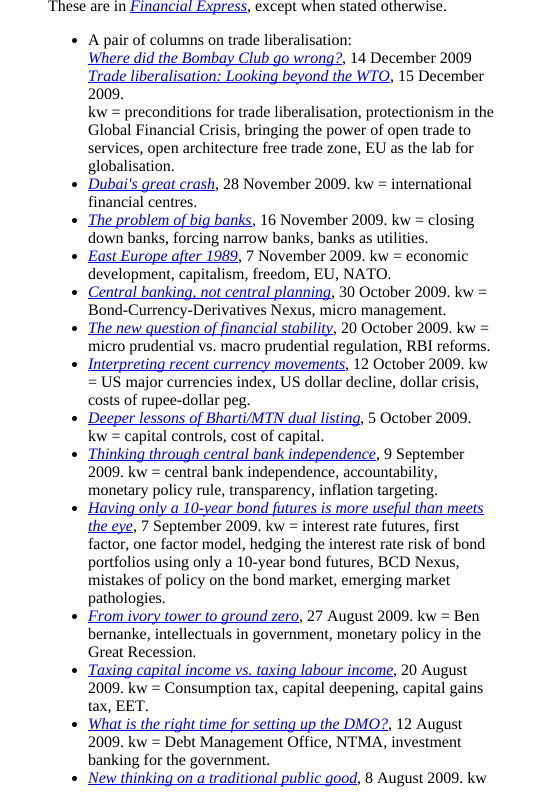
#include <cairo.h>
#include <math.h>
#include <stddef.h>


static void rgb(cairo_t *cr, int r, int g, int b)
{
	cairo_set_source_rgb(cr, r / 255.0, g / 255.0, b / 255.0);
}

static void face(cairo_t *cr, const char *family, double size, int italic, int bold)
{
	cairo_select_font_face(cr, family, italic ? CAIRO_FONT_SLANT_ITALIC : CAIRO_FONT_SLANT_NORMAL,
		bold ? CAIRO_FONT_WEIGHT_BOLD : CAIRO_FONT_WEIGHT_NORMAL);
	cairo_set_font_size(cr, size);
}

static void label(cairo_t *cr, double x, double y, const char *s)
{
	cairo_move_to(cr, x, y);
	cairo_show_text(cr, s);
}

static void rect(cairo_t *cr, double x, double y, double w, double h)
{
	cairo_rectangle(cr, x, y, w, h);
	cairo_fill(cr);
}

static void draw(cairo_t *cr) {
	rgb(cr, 255, 255, 255);
	cairo_paint(cr);
	face(cr, "Liberation Serif", 16, 0, 0);
	rgb(cr, 0, 0, 0);
	label(cr, 48, 11, "These are in");
	rgb(cr, 0, 0, 238);
	rect(cr, 130, 12, 117, 1);
	face(cr, "Liberation Serif", 16, 1, 0);
	label(cr, 130, 11, "Financial Express");
	face(cr, "Liberation Serif", 16, 0, 0);
	rgb(cr, 0, 0, 0);
	label(cr, 247, 11, ", except when stated otherwise.");
	cairo_new_path(cr);
	cairo_arc(cr, 74.5, 40.5, 2.5, 0, 2 * M_PI);
	cairo_fill(cr);
	label(cr, 88, 45, "A pair of columns on trade liberalisation:");
	rgb(cr, 0, 0, 238);
	rect(cr, 88, 64, 254, 1);
	face(cr, "Liberation Serif", 16, 1, 0);
	label(cr, 88, 63, "Where did the Bombay Club go wrong?");
	face(cr, "Liberation Serif", 16, 0, 0);
	rgb(cr, 0, 0, 0);
	label(cr, 342, 63, ", 14 December 2009");
	rgb(cr, 0, 0, 238);
	rect(cr, 88, 82, 302, 1);
	face(cr, "Liberation Serif", 16, 1, 0);
	label(cr, 88, 81, "Trade liberalisation: Looking beyond the WTO");
	face(cr, "Liberation Serif", 16, 0, 0);
	rgb(cr, 0, 0, 0);
	label(cr, 390, 81, ", 15 December");
	label(cr, 88, 99, "2009.");
	label(cr, 88, 117, "kw = preconditions for trade liberalisation, protectionism in the");
	label(cr, 88, 135, "Global Financial Crisis, bringing the power of open trade to");
	label(cr, 88, 153, "services, open architecture free trade zone, EU as the lab for");
	label(cr, 88, 171, "globalisation.");
	cairo_new_path(cr);
	cairo_arc(cr, 74.5, 184.5, 2.5, 0, 2 * M_PI);
	cairo_fill(cr);
	rgb(cr, 0, 0, 238);
	rect(cr, 88, 190, 127, 1);
	face(cr, "Liberation Serif", 16, 1, 0);
	label(cr, 88, 189, "Dubai's great crash");
	face(cr, "Liberation Serif", 16, 0, 0);
	rgb(cr, 0, 0, 0);
	label(cr, 215, 189, ", 28 November 2009. kw = international");
	label(cr, 88, 207, "financial centres.");
	cairo_new_path(cr);
	cairo_arc(cr, 74.5, 220.5, 2.5, 0, 2 * M_PI);
	cairo_fill(cr);
	rgb(cr, 0, 0, 238);
	rect(cr, 88, 226, 164, 1);
	face(cr, "Liberation Serif", 16, 1, 0);
	label(cr, 88, 225, "The problem of big banks");
	face(cr, "Liberation Serif", 16, 0, 0);
	rgb(cr, 0, 0, 0);
	label(cr, 252, 225, ", 16 November 2009. kw = closing");
	label(cr, 88, 243, "down banks, forcing narrow banks, banks as utilities.");
	cairo_new_path(cr);
	cairo_arc(cr, 74.5, 256.5, 2.5, 0, 2 * M_PI);
	cairo_fill(cr);
	rgb(cr, 0, 0, 238);
	rect(cr, 88, 262, 150, 1);
	face(cr, "Liberation Serif", 16, 1, 0);
	label(cr, 88, 261, "East Europe after 1989");
	face(cr, "Liberation Serif", 16, 0, 0);
	rgb(cr, 0, 0, 0);
	label(cr, 238, 261, ", 7 November 2009. kw = economic");
	label(cr, 88, 279, "development, capitalism, freedom, EU, NATO.");
	cairo_new_path(cr);
	cairo_arc(cr, 74.5, 292.5, 2.5, 0, 2 * M_PI);
	cairo_fill(cr);
	rgb(cr, 0, 0, 238);
	rect(cr, 88, 298, 243, 1);
	face(cr, "Liberation Serif", 16, 1, 0);
	label(cr, 88, 297, "Central banking, not central planning");
	face(cr, "Liberation Serif", 16, 0, 0);
	rgb(cr, 0, 0, 0);
	label(cr, 331, 297, ", 30 October 2009. kw =");
	label(cr, 88, 315, "Bond-Currency-Derivatives Nexus, micro management.");
	cairo_new_path(cr);
	cairo_arc(cr, 74.5, 328.5, 2.5, 0, 2 * M_PI);
	cairo_fill(cr);
	rgb(cr, 0, 0, 238);
	rect(cr, 88, 334, 245, 1);
	face(cr, "Liberation Serif", 16, 1, 0);
	label(cr, 88, 333, "The new question of financial stability");
	face(cr, "Liberation Serif", 16, 0, 0);
	rgb(cr, 0, 0, 0);
	label(cr, 333, 333, ", 20 October 2009. kw =");
	label(cr, 88, 351, "micro prudential vs. macro prudential regulation, RBI reforms.");
	cairo_new_path(cr);
	cairo_arc(cr, 74.5, 364.5, 2.5, 0, 2 * M_PI);
	cairo_fill(cr);
	rgb(cr, 0, 0, 238);
	rect(cr, 88, 370, 257, 1);
	face(cr, "Liberation Serif", 16, 1, 0);
	label(cr, 88, 369, "Interpreting recent currency movements");
	face(cr, "Liberation Serif", 16, 0, 0);
	rgb(cr, 0, 0, 0);
	label(cr, 345, 369, ", 12 October 2009. kw");
	label(cr, 88, 387, "= US major currencies index, US dollar decline, dollar crisis,");
	label(cr, 88, 405, "costs of rupee-dollar peg.");
	cairo_new_path(cr);
	cairo_arc(cr, 74.5, 418.5, 2.5, 0, 2 * M_PI);
	cairo_fill(cr);
	rgb(cr, 0, 0, 238);
	rect(cr, 88, 424, 272, 1);
	face(cr, "Liberation Serif", 16, 1, 0);
	label(cr, 88, 423, "Deeper lessons of Bharti/MTN dual listing");
	face(cr, "Liberation Serif", 16, 0, 0);
	rgb(cr, 0, 0, 0);
	label(cr, 360, 423, ", 5 October 2009.");
	label(cr, 88, 441, "kw = capital controls, cost of capital.");
	cairo_new_path(cr);
	cairo_arc(cr, 74.5, 454.5, 2.5, 0, 2 * M_PI);
	cairo_fill(cr);
	rgb(cr, 0, 0, 238);
	rect(cr, 88, 460, 288, 1);
	face(cr, "Liberation Serif", 16, 1, 0);
	label(cr, 88, 459, "Thinking through central bank independence");
	face(cr, "Liberation Serif", 16, 0, 0);
	rgb(cr, 0, 0, 0);
	label(cr, 376, 459, ", 9 September");
	label(cr, 88, 477, "2009. kw = central bank independence, accountability,");
	label(cr, 88, 495, "monetary policy rule, transparency, inflation targeting.");
	cairo_new_path(cr);
	cairo_arc(cr, 74.5, 508.5, 2.5, 0, 2 * M_PI);
	cairo_fill(cr);
	rgb(cr, 0, 0, 238);
	rect(cr, 88, 514, 396, 1);
	face(cr, "Liberation Serif", 16, 1, 0);
	label(cr, 88, 513, "Having only a 10-year bond futures is more useful than meets");
	rect(cr, 88, 532, 45, 1);
	label(cr, 88, 531, "the eye");
	face(cr, "Liberation Serif", 16, 0, 0);
	rgb(cr, 0, 0, 0);
	label(cr, 133, 531, ", 7 September 2009. kw = interest rate futures, first");
	label(cr, 88, 549, "factor, one factor model, hedging the interest rate risk of bond");
	label(cr, 88, 567, "portfolios using only a 10-year bond futures, BCD Nexus,");
	label(cr, 88, 585, "mistakes of policy on the bond market, emerging market");
	label(cr, 88, 603, "pathologies.");
	cairo_new_path(cr);
	cairo_arc(cr, 74.5, 616.5, 2.5, 0, 2 * M_PI);
	cairo_fill(cr);
	rgb(cr, 0, 0, 238);
	rect(cr, 88, 622, 211, 1);
	face(cr, "Liberation Serif", 16, 1, 0);
	label(cr, 88, 621, "From ivory tower to ground zero");
	face(cr, "Liberation Serif", 16, 0, 0);
	rgb(cr, 0, 0, 0);
	label(cr, 299, 621, ", 27 August 2009. kw = Ben");
	label(cr, 88, 639, "bernanke, intellectuals in government, monetary policy in the");
	label(cr, 88, 657, "Great Recession.");
	cairo_new_path(cr);
	cairo_arc(cr, 74.5, 670.5, 2.5, 0, 2 * M_PI);
	cairo_fill(cr);
	rgb(cr, 0, 0, 238);
	rect(cr, 88, 676, 305, 1);
	face(cr, "Liberation Serif", 16, 1, 0);
	label(cr, 88, 675, "Taxing capital income vs. taxing labour income");
	face(cr, "Liberation Serif", 16, 0, 0);
	rgb(cr, 0, 0, 0);
	label(cr, 393, 675, ", 20 August");
	label(cr, 88, 693, "2009. kw = Consumption tax, capital deepening, capital gains");
	label(cr, 88, 711, "tax, EET.");
	cairo_new_path(cr);
	cairo_arc(cr, 74.5, 724.5, 2.5, 0, 2 * M_PI);
	cairo_fill(cr);
	rgb(cr, 0, 0, 238);
	rect(cr, 88, 730, 300, 1);
	face(cr, "Liberation Serif", 16, 1, 0);
	label(cr, 88, 729, "What is the right time for setting up the DMO?");
	face(cr, "Liberation Serif", 16, 0, 0);
	rgb(cr, 0, 0, 0);
	label(cr, 388, 729, ", 12 August");
	label(cr, 88, 747, "2009. kw = Debt Management Office, NTMA, investment");
	label(cr, 88, 765, "banking for the government.");
	cairo_new_path(cr);
	cairo_arc(cr, 74.5, 778.5, 2.5, 0, 2 * M_PI);
	cairo_fill(cr);
	rgb(cr, 0, 0, 238);
	rect(cr, 88, 784, 269, 1);
	face(cr, "Liberation Serif", 16, 1, 0);
	label(cr, 88, 783, "New thinking on a traditional public good");
	face(cr, "Liberation Serif", 16, 0, 0);
	rgb(cr, 0, 0, 0);
	label(cr, 357, 783, ", 8 August 2009. kw");
}

int main(void) {
	cairo_surface_t *surface = cairo_image_surface_create(CAIRO_FORMAT_RGB24, 542, 797);
	cairo_t *cr = cairo_create(surface);
	cairo_font_options_t *options = cairo_font_options_create();
	cairo_font_options_set_hint_metrics(options, CAIRO_HINT_METRICS_OFF);
	cairo_font_options_set_hint_style(options, CAIRO_HINT_STYLE_NONE);
	cairo_set_font_options(cr, options);
	cairo_set_miter_limit(cr, 4);
	draw(cr);
	cairo_surface_write_to_png(surface, "render.png");
	cairo_font_options_destroy(options);
	cairo_destroy(cr);
	cairo_surface_destroy(surface);
	return 0;
}
